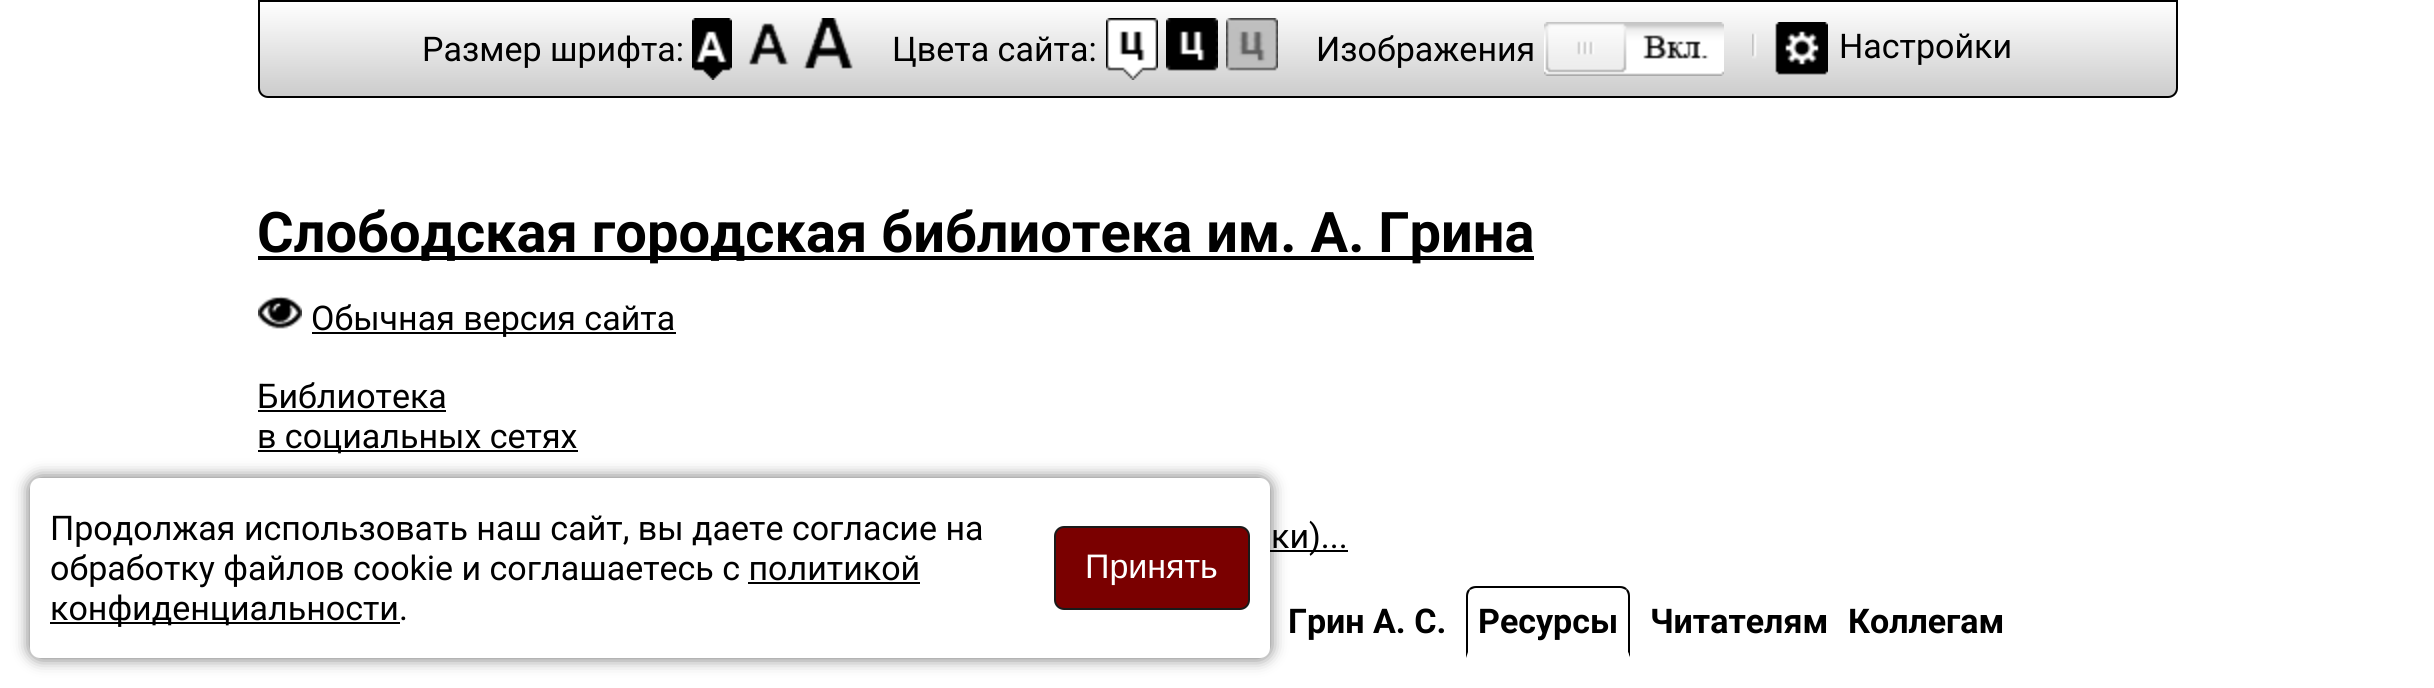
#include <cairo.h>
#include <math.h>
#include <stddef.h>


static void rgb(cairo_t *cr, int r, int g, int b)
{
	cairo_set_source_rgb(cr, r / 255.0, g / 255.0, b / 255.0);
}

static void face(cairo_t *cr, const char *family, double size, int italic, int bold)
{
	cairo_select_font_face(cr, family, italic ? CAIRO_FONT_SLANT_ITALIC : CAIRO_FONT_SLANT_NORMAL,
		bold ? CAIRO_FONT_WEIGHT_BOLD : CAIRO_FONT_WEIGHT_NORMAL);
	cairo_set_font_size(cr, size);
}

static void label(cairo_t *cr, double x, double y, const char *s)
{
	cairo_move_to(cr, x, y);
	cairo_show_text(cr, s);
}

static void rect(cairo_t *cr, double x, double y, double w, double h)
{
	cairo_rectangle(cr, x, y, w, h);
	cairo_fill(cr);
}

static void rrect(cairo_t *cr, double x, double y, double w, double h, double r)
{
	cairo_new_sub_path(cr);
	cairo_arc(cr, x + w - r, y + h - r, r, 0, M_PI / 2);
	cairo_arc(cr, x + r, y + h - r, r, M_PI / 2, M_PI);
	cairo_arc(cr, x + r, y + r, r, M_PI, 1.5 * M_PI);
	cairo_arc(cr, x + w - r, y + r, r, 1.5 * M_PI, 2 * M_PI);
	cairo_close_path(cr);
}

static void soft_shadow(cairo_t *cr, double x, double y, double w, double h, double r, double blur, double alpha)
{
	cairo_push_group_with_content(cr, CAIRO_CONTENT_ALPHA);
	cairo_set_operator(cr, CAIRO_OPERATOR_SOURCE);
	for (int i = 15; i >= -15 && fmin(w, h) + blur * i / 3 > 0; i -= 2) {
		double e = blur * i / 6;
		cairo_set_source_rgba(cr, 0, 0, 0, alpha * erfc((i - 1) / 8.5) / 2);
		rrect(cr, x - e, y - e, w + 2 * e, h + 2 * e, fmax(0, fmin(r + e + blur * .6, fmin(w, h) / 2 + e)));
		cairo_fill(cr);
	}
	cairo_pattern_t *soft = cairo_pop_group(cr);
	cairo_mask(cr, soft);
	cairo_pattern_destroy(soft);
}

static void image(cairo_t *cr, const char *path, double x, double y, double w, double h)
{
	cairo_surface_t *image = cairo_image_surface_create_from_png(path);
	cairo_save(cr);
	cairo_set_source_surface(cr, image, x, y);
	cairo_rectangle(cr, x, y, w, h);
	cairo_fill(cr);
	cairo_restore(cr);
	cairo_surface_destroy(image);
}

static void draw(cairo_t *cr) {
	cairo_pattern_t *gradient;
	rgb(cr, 255, 255, 255);
	cairo_paint(cr);
	cairo_save(cr);
	cairo_new_path(cr);
	cairo_move_to(cr, 258, 0);
	cairo_line_to(cr, 2178, 0);
	cairo_line_to(cr, 2178, 88);
	cairo_curve_to(cr, 2178, 93.5, 2173.5, 98, 2168, 98);
	cairo_line_to(cr, 268, 98);
	cairo_curve_to(cr, 262.5, 98, 258, 93.5, 258, 88);
	cairo_close_path(cr);
	cairo_clip(cr);
	gradient = cairo_pattern_create_linear(1218, 96, 1218, 2);
	cairo_pattern_add_color_stop_rgba(gradient, 0, 0.8, 0.8, 0.8, 1);
	cairo_pattern_add_color_stop_rgba(gradient, 1, 1, 1, 1, 1);
	cairo_set_source(cr, gradient);
	cairo_pattern_destroy(gradient);
	rect(cr, 258, 2, 1920, 94);
	cairo_restore(cr);
	cairo_new_path(cr);
	cairo_move_to(cr, 259, 1);
	cairo_line_to(cr, 2177, 1);
	cairo_line_to(cr, 2177, 88);
	cairo_curve_to(cr, 2177, 93, 2173, 97, 2168, 97);
	cairo_line_to(cr, 268, 97);
	cairo_curve_to(cr, 263, 97, 259, 93, 259, 88);
	cairo_close_path(cr);
	rgb(cr, 0, 0, 0);
	cairo_stroke(cr);
	face(cr, "Roboto", 34, 0, 0);
	label(cr, 422, 61, "Размер шрифта:");
	image(cr, "image0.png", 692, 18, 40, 62);
	image(cr, "image1.png", 748, 23, 41, 42);
	image(cr, "image2.png", 803, 18, 50, 51);
	label(cr, 892, 61, "Цвета сайта:");
	image(cr, "image3.png", 1106, 18, 52, 62);
	image(cr, "image4.png", 1166, 18, 52, 53);
	image(cr, "image5.png", 1226, 18, 52, 53);
	label(cr, 1316, 61, "Изображения");
	image(cr, "image6.png", 1544, 22, 180, 54);
	image(cr, "image7.png", 1752, 22, 76, 53);
	label(cr, 1839, 58, "Настройки");
	rect(cr, 258, 256, 1276, 4);
	face(cr, "Roboto", 56, 0, 1);
	label(cr, 257, 252, "Слободская городская библиотека им. А. Грина");
	image(cr, "image8.png", 258, 296, 44, 33);
	rect(cr, 312, 332, 364, 2);
	face(cr, "Roboto", 34, 0, 0);
	label(cr, 311, 330, "Обычная версия сайта");
	label(cr, 257, 408, "Библиотека");
	rect(cr, 258, 410, 188, 2);
	rect(cr, 258, 450, 320, 2);
	label(cr, 257, 448, "в социальных сетях");
	rect(cr, 1270, 550, 78, 2);
	label(cr, 1271, 548, "ки)...");
	face(cr, "Roboto", 34, 0, 1);
	label(cr, 1288, 633, "Грин А. С.");
	cairo_new_path(cr);
	cairo_move_to(cr, 1476, 586);
	cairo_curve_to(cr, 1473, 586, 1470, 587, 1469, 589);
	cairo_line_to(cr, 1470, 590);
	cairo_curve_to(cr, 1472, 589, 1474, 588, 1476, 588);
	cairo_line_to(cr, 1620, 588);
	cairo_curve_to(cr, 1622, 588, 1624, 589, 1626, 590);
	cairo_line_to(cr, 1627, 589);
	cairo_curve_to(cr, 1626, 587, 1623, 586, 1620, 586);
	cairo_close_path(cr);
	cairo_fill(cr);
	cairo_new_path(cr);
	cairo_move_to(cr, 1630, 658);
	cairo_line_to(cr, 1630, 596);
	cairo_curve_to(cr, 1630, 593, 1629, 590, 1627, 589);
	cairo_line_to(cr, 1626, 590);
	cairo_curve_to(cr, 1627, 592, 1628, 594, 1628, 596);
	cairo_line_to(cr, 1628, 652);
	cairo_close_path(cr);
	cairo_fill(cr);
	rgb(cr, 255, 255, 255);
	cairo_new_path(cr);
	cairo_move_to(cr, 1630, 658);
	cairo_line_to(cr, 1628, 652);
	cairo_line_to(cr, 1468, 652);
	cairo_line_to(cr, 1466, 658);
	cairo_close_path(cr);
	cairo_fill(cr);
	rgb(cr, 0, 0, 0);
	cairo_new_path(cr);
	cairo_move_to(cr, 1466, 658);
	cairo_line_to(cr, 1468, 652);
	cairo_line_to(cr, 1468, 596);
	cairo_curve_to(cr, 1468, 594, 1469, 592, 1470, 590);
	cairo_line_to(cr, 1469, 589);
	cairo_curve_to(cr, 1467, 590, 1466, 593, 1466, 596);
	cairo_close_path(cr);
	cairo_fill(cr);
	label(cr, 1478, 633, "Ресурсы");
	label(cr, 1650, 633, "Читателям");
	label(cr, 1848, 633, "Коллегам");
	rgb(cr, 0, 0, 0);
	soft_shadow(cr, 30, 478, 1240, 180, 10, 8, 0.6);
	rgb(cr, 255, 255, 255);
	rrect(cr, 30, 478, 1240, 180, 10);
	cairo_fill(cr);
	face(cr, "Roboto", 34, 0, 0);
	rgb(cr, 0, 0, 0);
	label(cr, 50, 540, "Продолжая использовать наш сайт, вы даете согласие на");
	label(cr, 50, 580, "обработку файлов cookie и соглашаетесь с политикой");
	rect(cr, 50, 622, 350, 2);
	label(cr, 50, 620, "конфиденциальности.");
	rect(cr, 748, 582, 172, 2);
	rgb(cr, 122, 0, 0);
	rrect(cr, 1055, 527, 194, 82, 9);
	cairo_fill_preserve(cr);
	rgb(cr, 26, 26, 26);
	cairo_stroke(cr);
	face(cr, "Liberation Sans", 34, 0, 0);
	rgb(cr, 255, 255, 255);
	label(cr, 1085, 578, "Принять");
}

int main(void) {
	cairo_surface_t *surface = cairo_image_surface_create(CAIRO_FORMAT_RGB24, 2434, 688);
	cairo_t *cr = cairo_create(surface);
	cairo_font_options_t *options = cairo_font_options_create();
	cairo_font_options_set_hint_metrics(options, CAIRO_HINT_METRICS_OFF);
	cairo_font_options_set_hint_style(options, CAIRO_HINT_STYLE_NONE);
	cairo_set_font_options(cr, options);
	cairo_set_miter_limit(cr, 4);
	draw(cr);
	cairo_surface_write_to_png(surface, "render.png");
	cairo_font_options_destroy(options);
	cairo_destroy(cr);
	cairo_surface_destroy(surface);
	return 0;
}
